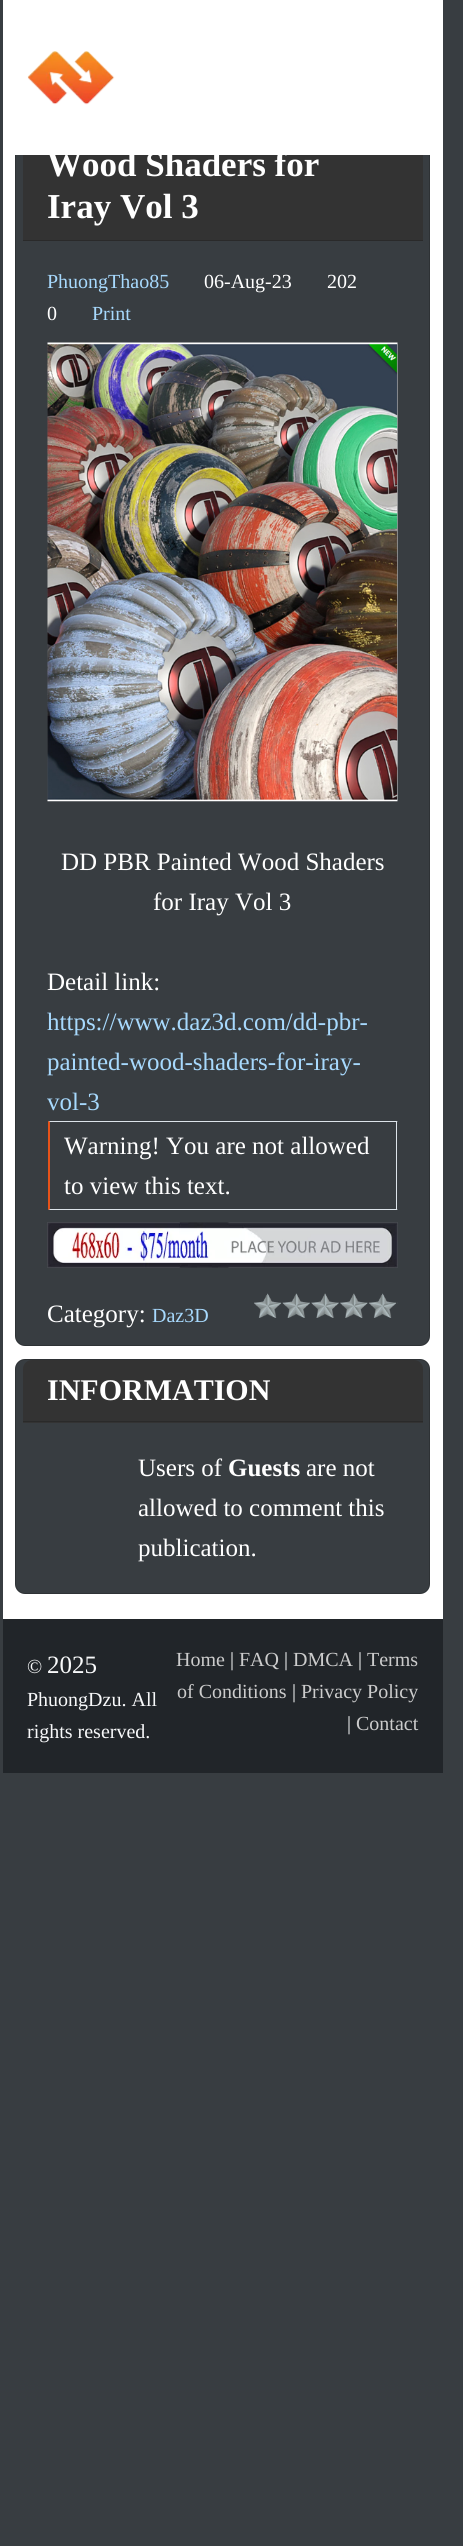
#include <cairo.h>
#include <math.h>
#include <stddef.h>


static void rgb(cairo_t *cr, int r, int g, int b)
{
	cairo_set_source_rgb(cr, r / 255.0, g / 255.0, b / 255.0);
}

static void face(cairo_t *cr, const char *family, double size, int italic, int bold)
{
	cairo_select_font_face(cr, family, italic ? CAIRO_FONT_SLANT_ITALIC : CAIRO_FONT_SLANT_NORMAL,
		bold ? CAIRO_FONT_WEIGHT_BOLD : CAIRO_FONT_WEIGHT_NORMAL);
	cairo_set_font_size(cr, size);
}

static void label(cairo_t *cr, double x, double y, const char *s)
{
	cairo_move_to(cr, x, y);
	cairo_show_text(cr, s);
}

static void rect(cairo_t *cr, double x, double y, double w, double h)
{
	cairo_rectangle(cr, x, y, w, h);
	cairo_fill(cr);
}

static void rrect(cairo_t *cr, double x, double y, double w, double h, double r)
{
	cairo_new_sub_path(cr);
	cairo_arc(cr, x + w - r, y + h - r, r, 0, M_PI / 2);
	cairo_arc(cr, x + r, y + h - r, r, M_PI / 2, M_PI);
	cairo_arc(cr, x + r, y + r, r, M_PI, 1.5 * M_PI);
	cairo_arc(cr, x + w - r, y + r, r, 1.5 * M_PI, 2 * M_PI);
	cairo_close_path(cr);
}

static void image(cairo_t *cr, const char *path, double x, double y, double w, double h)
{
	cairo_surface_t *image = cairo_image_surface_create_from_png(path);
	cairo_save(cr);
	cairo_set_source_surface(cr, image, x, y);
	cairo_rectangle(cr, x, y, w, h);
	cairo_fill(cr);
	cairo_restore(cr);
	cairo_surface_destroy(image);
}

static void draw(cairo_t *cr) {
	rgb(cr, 56, 61, 65);
	cairo_paint(cr);
	rgb(cr, 255, 255, 255);
	rect(cr, 3, 155, 440, 1464);
	rgb(cr, 56, 61, 65);
	rrect(cr, 15, 88, 415, 1258, 10);
	cairo_fill(cr);
	rrect(cr, 15.5, 88.5, 414, 1257, 9.5);
	cairo_set_source_rgba(cr, 0, 0, 0, 0.18);
	cairo_set_line_width(cr, 1);
	cairo_stroke(cr);
	rgb(cr, 255, 255, 255);
	rect(cr, 3, 0, 440, 155);
	image(cr, "image0.png", 27, 51, 88, 54);
	rgb(cr, 51, 51, 51);
	rect(cr, 23, 155, 400, 85);
	rgb(cr, 42, 42, 42);
	rect(cr, 23, 240, 400, 1);
	face(cr, "Liberation Serif", 35, 0, 1);
	rgb(cr, 255, 255, 255);
	label(cr, 47, 176, "Wood Shaders for");
	label(cr, 47, 218, "Iray Vol 3");
	face(cr, "Liberation Serif", 20, 0, 0);
	rgb(cr, 167, 217, 253);
	label(cr, 47, 288, "PhuongThao85");
	rgb(cr, 255, 255, 255);
	label(cr, 204, 288, "06-Aug-23");
	label(cr, 327, 288, "202");
	label(cr, 47, 320, "0");
	rgb(cr, 167, 217, 253);
	label(cr, 92, 320, "Print");
	image(cr, "image1.png", 47, 342, 351, 460);
	face(cr, "Liberation Serif", 25, 0, 0);
	rgb(cr, 255, 255, 255);
	label(cr, 61, 870, "DD PBR Painted Wood Shaders");
	label(cr, 153, 910, "for Iray Vol 3");
	label(cr, 47, 990, "Detail link:");
	rgb(cr, 167, 217, 253);
	label(cr, 47, 1030, "https://www.daz3d.com/dd-pbr-");
	label(cr, 47, 1070, "painted-wood-shaders-for-iray-");
	label(cr, 47, 1110, "vol-3");
	rgb(cr, 221, 228, 234);
	cairo_new_path(cr);
	cairo_move_to(cr, 48, 1121);
	cairo_line_to(cr, 398, 1121);
	cairo_line_to(cr, 396, 1122);
	cairo_line_to(cr, 50, 1122);
	cairo_close_path(cr);
	cairo_fill(cr);
	rect(cr, 396, 1121, 1, 89);
	cairo_new_path(cr);
	cairo_move_to(cr, 398, 1210);
	cairo_line_to(cr, 48, 1210);
	cairo_line_to(cr, 50, 1209);
	cairo_line_to(cr, 396, 1209);
	cairo_close_path(cr);
	cairo_fill(cr);
	rgb(cr, 232, 83, 25);
	cairo_new_path(cr);
	cairo_move_to(cr, 48, 1210);
	cairo_line_to(cr, 48, 1121);
	cairo_line_to(cr, 50, 1122);
	cairo_line_to(cr, 50, 1209);
	cairo_close_path(cr);
	cairo_fill(cr);
	rgb(cr, 255, 255, 255);
	label(cr, 64, 1154, "Warning! You are not allowed");
	label(cr, 64, 1194, "to view this text.");
	image(cr, "image2.png", 47, 1222, 351, 46);
	label(cr, 47, 1322, "Category:");
	face(cr, "Liberation Serif", 20, 0, 0);
	rgb(cr, 167, 217, 253);
	label(cr, 152, 1322, "Daz3D");
	image(cr, "image3.png", 254, 1293, 144, 25);
	rgb(cr, 56, 61, 65);
	rrect(cr, 15, 1359, 415, 235, 10);
	cairo_fill(cr);
	rrect(cr, 15.5, 1359.5, 414, 234, 9.5);
	cairo_set_source_rgba(cr, 0, 0, 0, 0.18);
	cairo_stroke(cr);
	rgb(cr, 51, 51, 51);
	cairo_new_path(cr);
	cairo_move_to(cr, 32, 1360);
	cairo_line_to(cr, 414, 1360);
	cairo_curve_to(cr, 419, 1360, 423, 1364, 423, 1369);
	cairo_line_to(cr, 423, 1423);
	cairo_line_to(cr, 23, 1423);
	cairo_line_to(cr, 23, 1369);
	cairo_curve_to(cr, 23, 1364, 27, 1360, 32, 1360);
	cairo_close_path(cr);
	cairo_fill(cr);
	rgb(cr, 42, 42, 42);
	rect(cr, 23, 1421, 400, 1);
	face(cr, "Liberation Serif", 30, 0, 1);
	rgb(cr, 255, 255, 255);
	label(cr, 47, 1400, "INFORMATION");
	face(cr, "Liberation Serif", 25, 0, 0);
	label(cr, 138, 1476, "Users of");
	face(cr, "Liberation Serif", 25, 0, 1);
	label(cr, 228, 1476, "Guests");
	face(cr, "Liberation Serif", 25, 0, 0);
	label(cr, 306, 1476, "are not");
	label(cr, 138, 1516, "allowed to comment this");
	label(cr, 138, 1556, "publication.");
	rgb(cr, 33, 37, 41);
	rect(cr, 3, 1619, 440, 154);
	face(cr, "Liberation Serif", 20, 0, 0);
	rgb(cr, 248, 249, 250);
	label(cr, 27, 1673, "©");
	face(cr, "Liberation Serif", 25, 0, 0);
	label(cr, 47, 1673, "2025");
	face(cr, "Liberation Serif", 20, 0, 0);
	label(cr, 27, 1706, "PhuongDzu. All");
	label(cr, 27, 1738, "rights reserved.");
	rgb(cr, 204, 204, 204);
	label(cr, 176, 1666, "Home");
	rgb(cr, 248, 249, 250);
	label(cr, 230, 1666, "|");
	rgb(cr, 204, 204, 204);
	label(cr, 239, 1666, "FAQ");
	rgb(cr, 248, 249, 250);
	label(cr, 284, 1666, "|");
	rgb(cr, 204, 204, 204);
	label(cr, 293, 1666, "DMCA");
	rgb(cr, 248, 249, 250);
	label(cr, 358, 1666, "|");
	rgb(cr, 204, 204, 204);
	label(cr, 367, 1666, "Terms");
	label(cr, 177, 1698, "of Conditions");
	rgb(cr, 248, 249, 250);
	label(cr, 292, 1698, "|");
	rgb(cr, 204, 204, 204);
	label(cr, 301, 1698, "Privacy Policy");
	rgb(cr, 248, 249, 250);
	label(cr, 347, 1730, "|");
	rgb(cr, 204, 204, 204);
	label(cr, 356, 1730, "Contact");
}

int main(void) {
	cairo_surface_t *surface = cairo_image_surface_create(CAIRO_FORMAT_RGB24, 463, 2546);
	cairo_t *cr = cairo_create(surface);
	cairo_font_options_t *options = cairo_font_options_create();
	cairo_font_options_set_hint_metrics(options, CAIRO_HINT_METRICS_OFF);
	cairo_font_options_set_hint_style(options, CAIRO_HINT_STYLE_NONE);
	cairo_set_font_options(cr, options);
	cairo_set_miter_limit(cr, 4);
	draw(cr);
	cairo_surface_write_to_png(surface, "render.png");
	cairo_font_options_destroy(options);
	cairo_destroy(cr);
	cairo_surface_destroy(surface);
	return 0;
}
